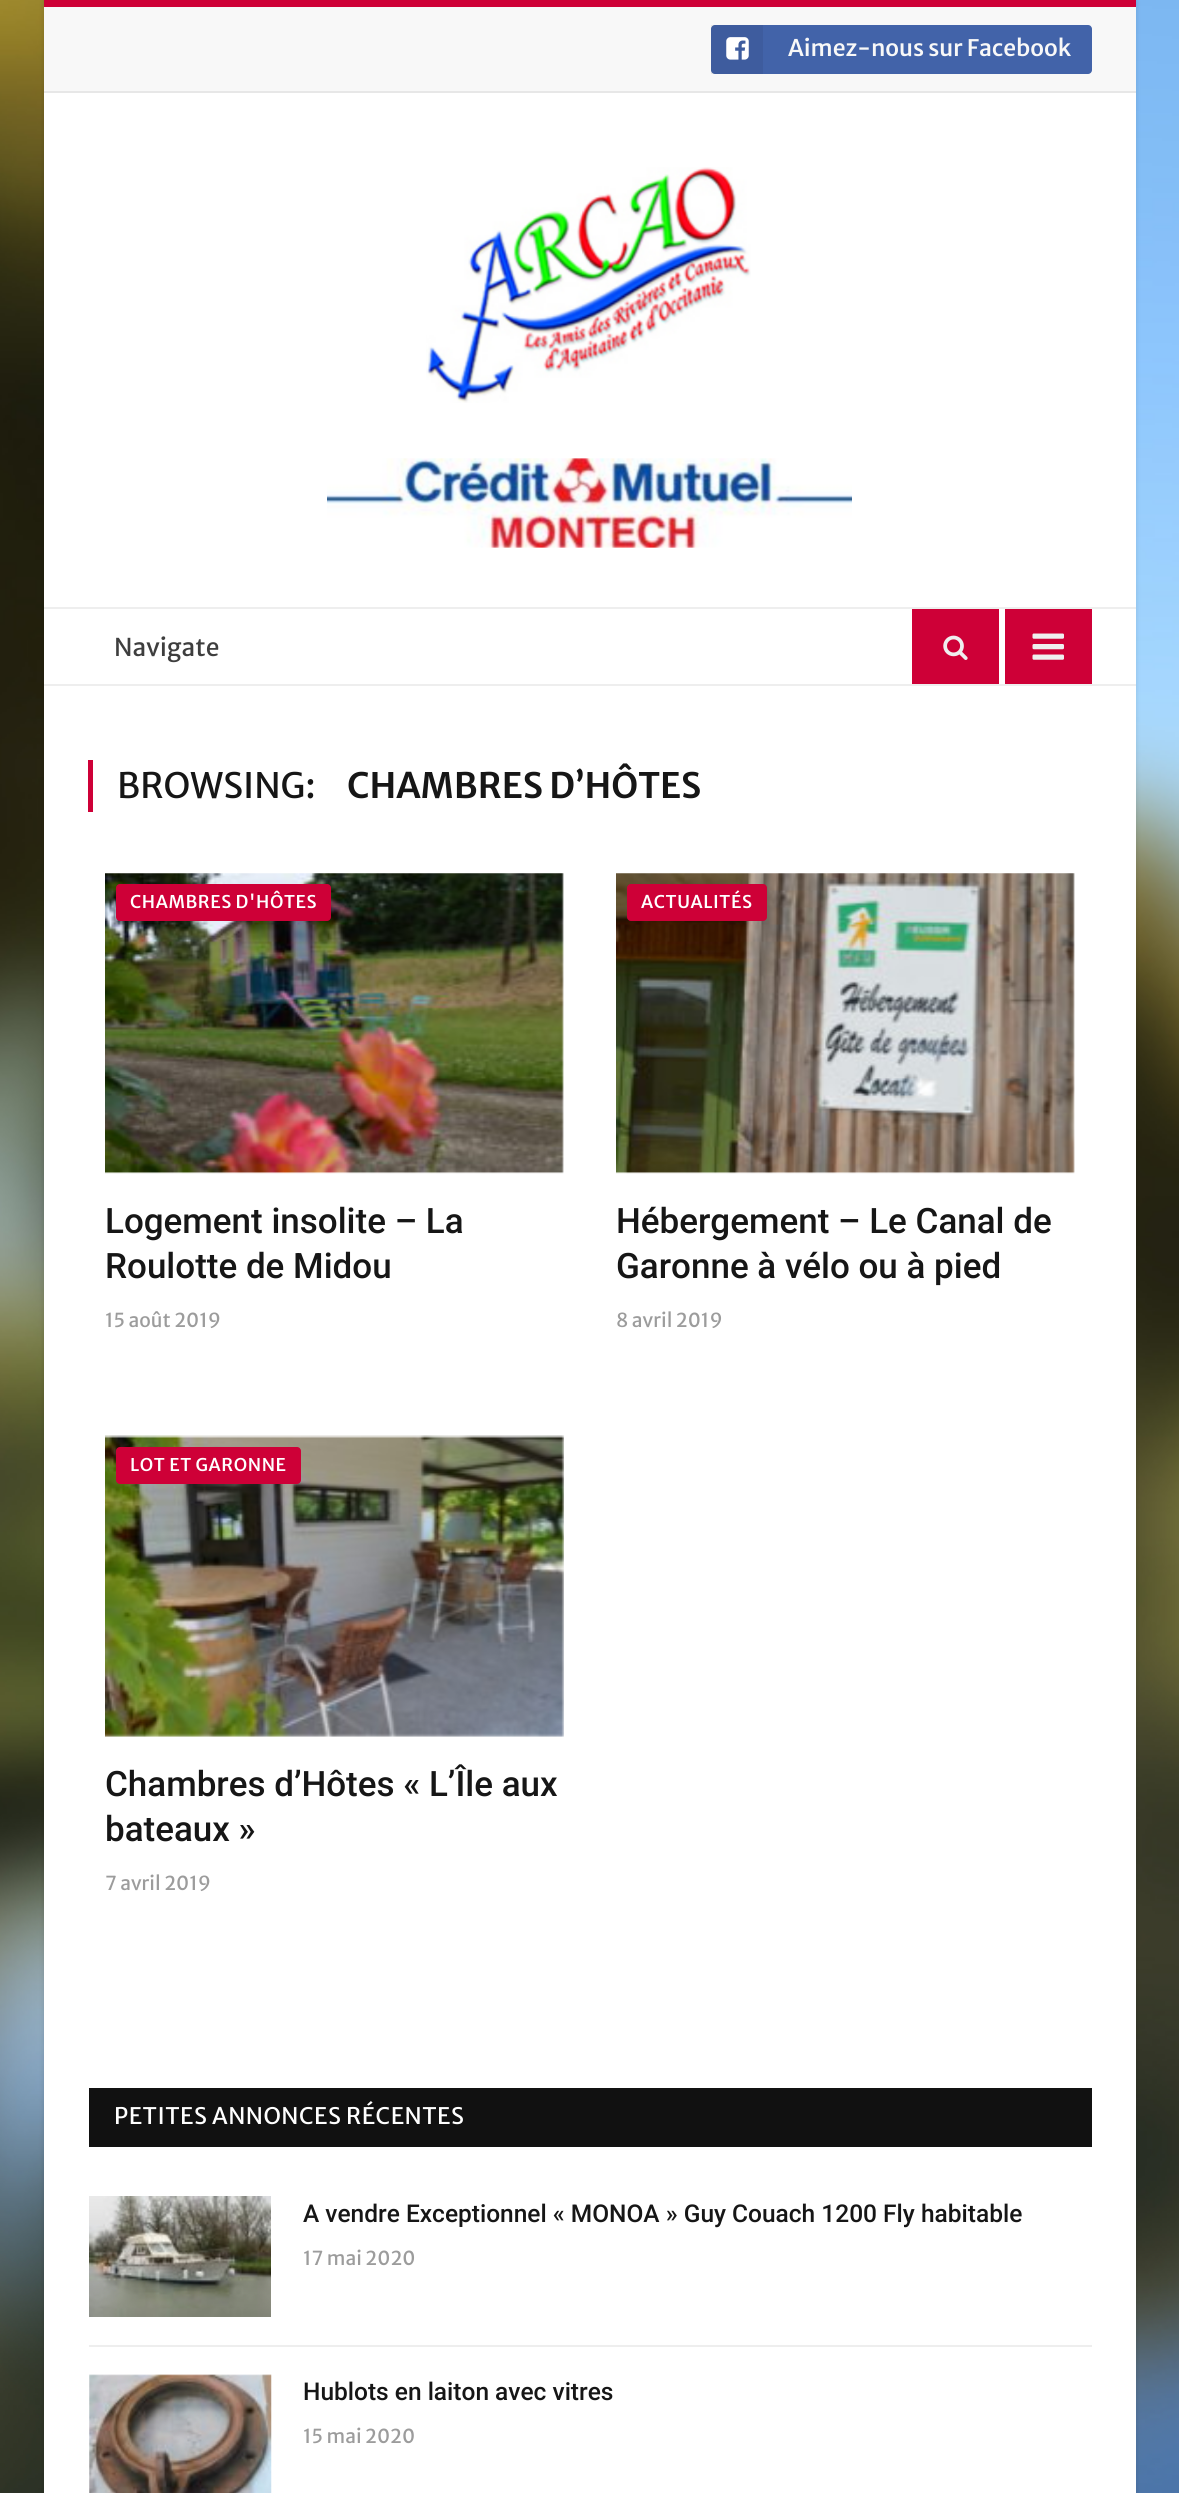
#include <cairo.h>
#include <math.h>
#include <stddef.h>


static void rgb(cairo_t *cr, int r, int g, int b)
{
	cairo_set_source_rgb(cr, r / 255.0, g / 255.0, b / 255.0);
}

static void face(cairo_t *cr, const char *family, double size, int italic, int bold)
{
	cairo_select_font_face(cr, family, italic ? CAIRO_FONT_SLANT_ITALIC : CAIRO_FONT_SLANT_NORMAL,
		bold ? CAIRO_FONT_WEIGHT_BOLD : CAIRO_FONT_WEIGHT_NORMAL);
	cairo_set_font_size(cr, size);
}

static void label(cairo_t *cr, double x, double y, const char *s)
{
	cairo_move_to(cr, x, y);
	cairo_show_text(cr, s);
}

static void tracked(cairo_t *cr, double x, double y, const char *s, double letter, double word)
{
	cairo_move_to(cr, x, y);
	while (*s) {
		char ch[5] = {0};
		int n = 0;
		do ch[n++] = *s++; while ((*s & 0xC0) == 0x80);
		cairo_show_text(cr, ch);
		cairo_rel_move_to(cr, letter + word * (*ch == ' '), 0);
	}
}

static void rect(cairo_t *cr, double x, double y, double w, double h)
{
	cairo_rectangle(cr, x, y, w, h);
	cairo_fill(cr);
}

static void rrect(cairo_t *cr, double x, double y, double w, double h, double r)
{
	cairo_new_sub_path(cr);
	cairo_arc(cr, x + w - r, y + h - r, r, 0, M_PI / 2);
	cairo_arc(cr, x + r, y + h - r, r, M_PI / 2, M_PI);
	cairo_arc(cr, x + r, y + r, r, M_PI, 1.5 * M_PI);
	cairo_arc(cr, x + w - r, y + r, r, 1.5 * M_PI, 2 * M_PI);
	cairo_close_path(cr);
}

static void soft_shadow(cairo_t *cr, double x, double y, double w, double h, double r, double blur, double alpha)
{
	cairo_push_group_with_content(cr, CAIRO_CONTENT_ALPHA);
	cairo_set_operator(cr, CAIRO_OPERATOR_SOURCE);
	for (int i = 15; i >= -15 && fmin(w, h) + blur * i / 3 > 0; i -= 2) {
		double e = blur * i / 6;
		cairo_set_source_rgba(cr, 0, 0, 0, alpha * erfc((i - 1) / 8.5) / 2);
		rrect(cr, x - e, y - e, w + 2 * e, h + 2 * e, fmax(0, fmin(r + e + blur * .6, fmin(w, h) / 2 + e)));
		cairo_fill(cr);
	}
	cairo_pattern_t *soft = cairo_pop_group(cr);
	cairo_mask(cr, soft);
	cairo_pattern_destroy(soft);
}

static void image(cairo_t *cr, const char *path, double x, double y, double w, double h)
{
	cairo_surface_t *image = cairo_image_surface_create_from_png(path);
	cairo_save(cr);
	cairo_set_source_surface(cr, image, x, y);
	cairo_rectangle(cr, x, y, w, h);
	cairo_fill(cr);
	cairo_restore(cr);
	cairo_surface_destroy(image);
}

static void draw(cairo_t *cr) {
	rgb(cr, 255, 255, 255);
	cairo_paint(cr);
	image(cr, "image0.png", 0, 0, 1179, 2493);
	rgb(cr, 0, 0, 0);
	soft_shadow(cr, 44, 0, 1092, 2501, 0, 2.5, 0.12);
	rgb(cr, 255, 255, 255);
	rect(cr, 44, 93, 1092, 2400);
	rgb(cr, 248, 248, 248);
	rect(cr, 44, 7, 1092, 84);
	rgb(cr, 206, 0, 55);
	rect(cr, 44, 0, 1092, 7);
	rgb(cr, 231, 231, 231);
	rect(cr, 44, 91, 1092, 2);
	rgb(cr, 66, 99, 169);
	rrect(cr, 711, 25, 381, 49, 4);
	cairo_fill(cr);
	cairo_set_source_rgba(cr, 0, 0, 0, 0.07);
	rect(cr, 711, 25, 52, 49);
	image(cr, "image1.png", 726, 37, 23, 23);
	face(cr, "Merriweather Sans Medium", 22.75, 0, 0);
	rgb(cr, 248, 248, 248);
	label(cr, 788, 56, "Aimez-nous sur Facebook");
	image(cr, "image2.png", 426, 167, 325, 236);
	image(cr, "image3.png", 327, 458, 525, 90);
	rgb(cr, 238, 238, 238);
	rect(cr, 44, 607, 1092, 2);
	rect(cr, 44, 684, 1092, 2);
	face(cr, "Merriweather Sans", 24.5, 0, 0);
	rgb(cr, 62, 62, 62);
	label(cr, 114, 656, "Navigate");
	rgb(cr, 206, 0, 55);
	rect(cr, 912, 609, 87, 75);
	image(cr, "image4.png", 943, 635, 25, 25);
	rect(cr, 1005, 609, 87, 75);
	image(cr, "image5.png", 1032, 633, 32, 27);
	rect(cr, 88, 760, 5, 52);
	face(cr, "Merriweather Sans", 35, 0, 0);
	rgb(cr, 22, 22, 22);
	label(cr, 117, 798, "BROWSING:");
	face(cr, "Merriweather Sans SemiBold", 35, 0, 0);
	label(cr, 347, 798, "CHAMBRES D’HÔTES");
	image(cr, "image6.png", 105, 873, 459, 301);
	rgb(cr, 206, 0, 55);
	rrect(cr, 116, 884, 215, 37, 4);
	cairo_fill(cr);
	face(cr, "Merriweather Sans Medium", 17.5, 0, 0);
	rgb(cr, 255, 255, 255);
	tracked(cr, 130, 908, "CHAMBRES D'HÔTES", 0.6, 0);
	face(cr, "Roboto Medium", 35, 0, 0);
	rgb(cr, 22, 22, 22);
	label(cr, 105, 1233, "Logement insolite – La");
	label(cr, 105, 1278, "Roulotte de Midou");
	face(cr, "Merriweather Sans", 19.25, 0, 0);
	rgb(cr, 156, 156, 156);
	label(cr, 105, 1327, "15 août 2019");
	image(cr, "image7.png", 616, 873, 459, 301);
	rgb(cr, 206, 0, 55);
	rrect(cr, 627, 884, 140, 37, 4);
	cairo_fill(cr);
	face(cr, "Merriweather Sans Medium", 17.5, 0, 0);
	rgb(cr, 255, 255, 255);
	tracked(cr, 641, 908, "ACTUALITÉS", 0.6, 0);
	face(cr, "Roboto Medium", 35, 0, 0);
	rgb(cr, 22, 22, 22);
	label(cr, 616, 1233, "Hébergement – Le Canal de");
	label(cr, 616, 1278, "Garonne à vélo ou à pied");
	face(cr, "Merriweather Sans", 19.25, 0, 0);
	rgb(cr, 156, 156, 156);
	label(cr, 616, 1327, "8 avril 2019");
	image(cr, "image8.png", 105, 1435, 459, 302);
	rgb(cr, 206, 0, 55);
	rrect(cr, 116, 1447, 185, 37, 4);
	cairo_fill(cr);
	face(cr, "Merriweather Sans Medium", 17.5, 0, 0);
	rgb(cr, 255, 255, 255);
	tracked(cr, 130, 1471, "LOT ET GARONNE", 0.6, 0);
	face(cr, "Roboto Medium", 35, 0, 0);
	rgb(cr, 22, 22, 22);
	label(cr, 105, 1796, "Chambres d’Hôtes « L’Île aux");
	label(cr, 105, 1841, "bateaux »");
	face(cr, "Merriweather Sans", 19.25, 0, 0);
	rgb(cr, 156, 156, 156);
	label(cr, 105, 1890, "7 avril 2019");
	rgb(cr, 17, 17, 17);
	rect(cr, 89, 2088, 1003, 59);
	face(cr, "Merriweather Sans", 22.75, 0, 0);
	rgb(cr, 255, 255, 255);
	tracked(cr, 114, 2124, "PETITES ANNONCES RÉCENTES", 0.5, 0);
	rgb(cr, 238, 238, 238);
	rect(cr, 89, 2345, 1003, 2);
	image(cr, "image9.png", 89, 2196, 182, 121);
	face(cr, "Roboto Medium", 24.5, 0, 0);
	rgb(cr, 22, 22, 22);
	label(cr, 303, 2222, "A vendre Exceptionnel « MONOA » Guy Couach 1200 Fly habitable");
	face(cr, "Merriweather Sans", 19.25, 0, 0);
	rgb(cr, 156, 156, 156);
	label(cr, 303, 2265, "17 mai 2020");
	image(cr, "image10.png", 89, 2374, 183, 119);
	face(cr, "Roboto Medium", 24.5, 0, 0);
	rgb(cr, 22, 22, 22);
	label(cr, 303, 2400, "Hublots en laiton avec vitres");
	face(cr, "Merriweather Sans", 19.25, 0, 0);
	rgb(cr, 156, 156, 156);
	label(cr, 303, 2443, "15 mai 2020");
}

int main(void) {
	cairo_surface_t *surface = cairo_image_surface_create(CAIRO_FORMAT_RGB24, 1179, 2493);
	cairo_t *cr = cairo_create(surface);
	cairo_font_options_t *options = cairo_font_options_create();
	cairo_font_options_set_hint_metrics(options, CAIRO_HINT_METRICS_OFF);
	cairo_font_options_set_hint_style(options, CAIRO_HINT_STYLE_NONE);
	cairo_set_font_options(cr, options);
	cairo_set_miter_limit(cr, 4);
	draw(cr);
	cairo_surface_write_to_png(surface, "render.png");
	cairo_font_options_destroy(options);
	cairo_destroy(cr);
	cairo_surface_destroy(surface);
	return 0;
}
